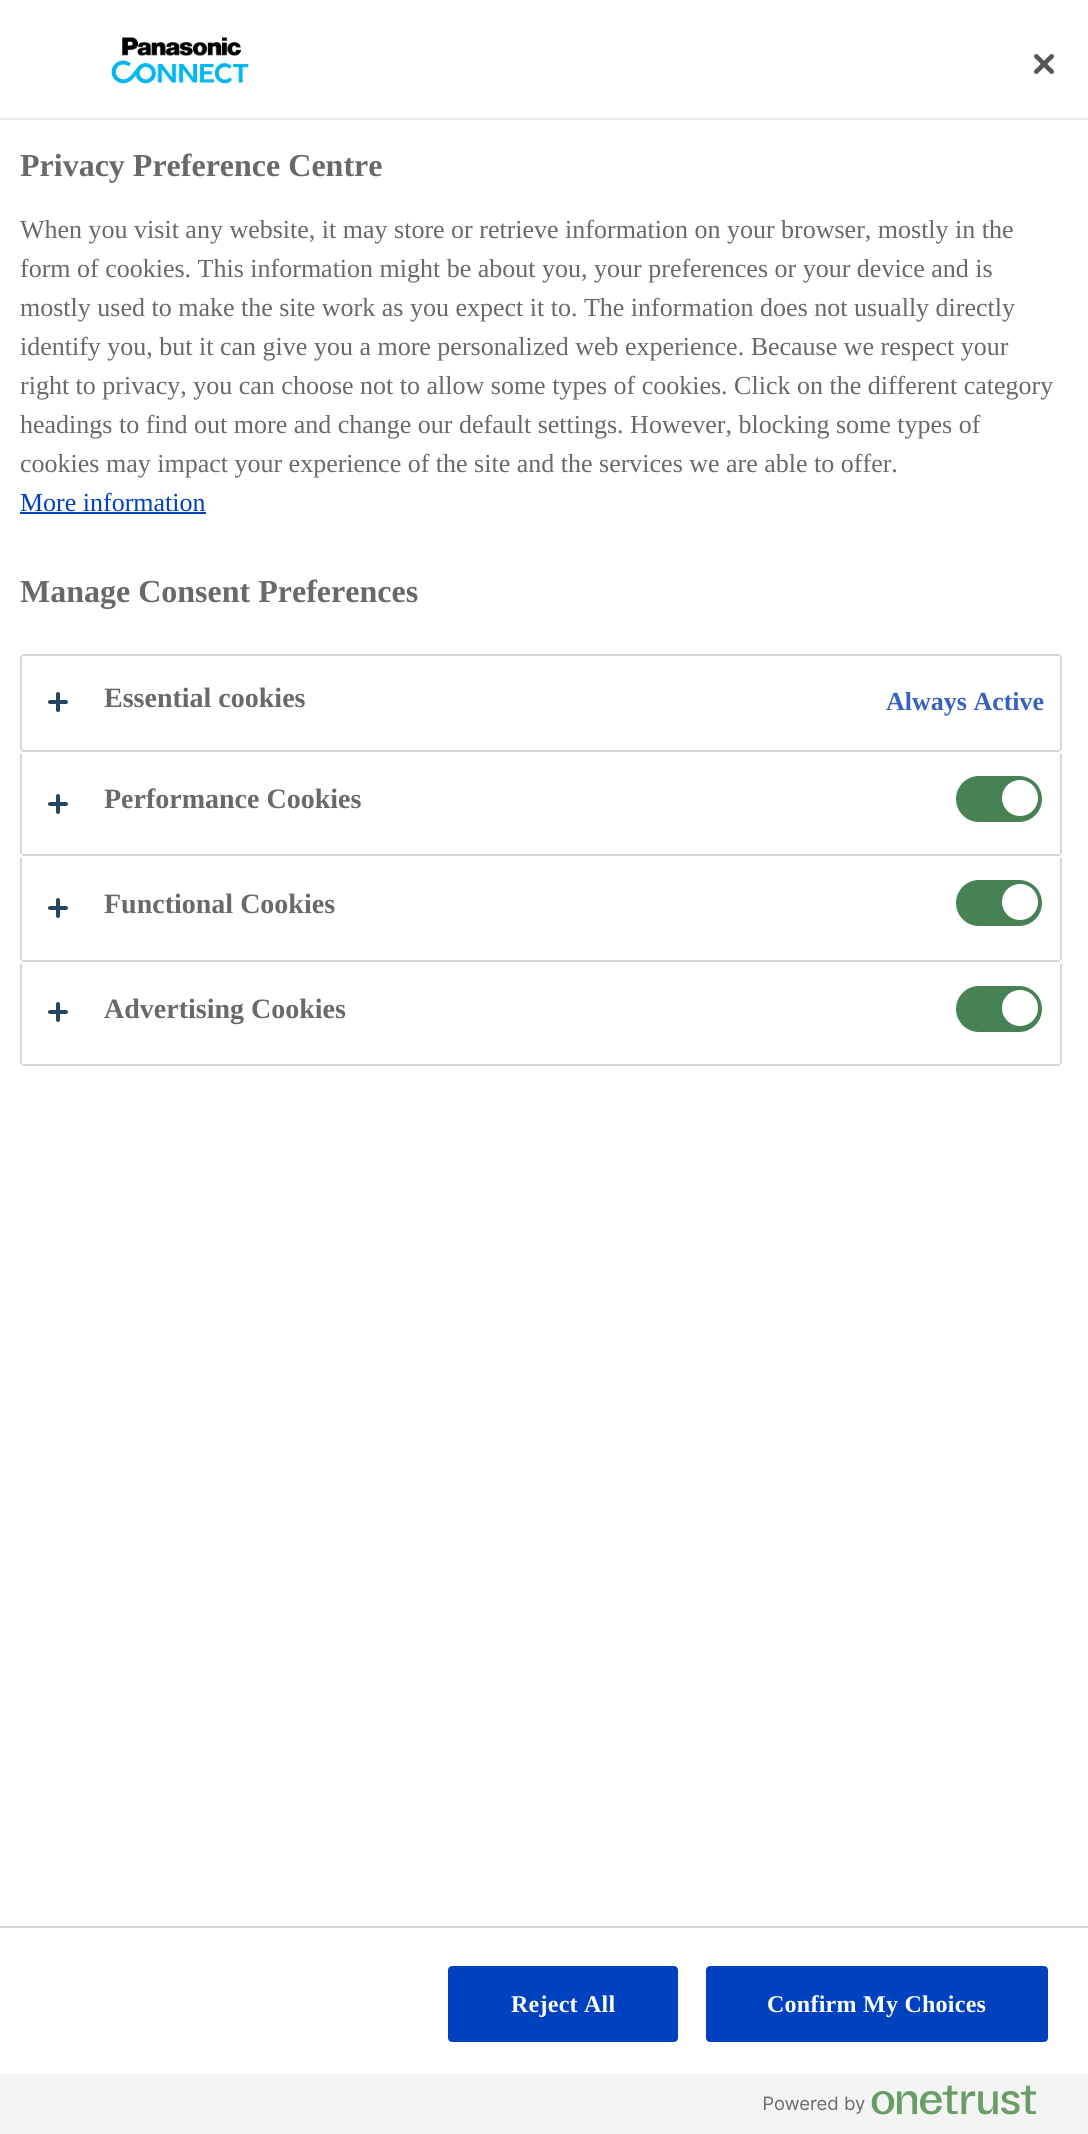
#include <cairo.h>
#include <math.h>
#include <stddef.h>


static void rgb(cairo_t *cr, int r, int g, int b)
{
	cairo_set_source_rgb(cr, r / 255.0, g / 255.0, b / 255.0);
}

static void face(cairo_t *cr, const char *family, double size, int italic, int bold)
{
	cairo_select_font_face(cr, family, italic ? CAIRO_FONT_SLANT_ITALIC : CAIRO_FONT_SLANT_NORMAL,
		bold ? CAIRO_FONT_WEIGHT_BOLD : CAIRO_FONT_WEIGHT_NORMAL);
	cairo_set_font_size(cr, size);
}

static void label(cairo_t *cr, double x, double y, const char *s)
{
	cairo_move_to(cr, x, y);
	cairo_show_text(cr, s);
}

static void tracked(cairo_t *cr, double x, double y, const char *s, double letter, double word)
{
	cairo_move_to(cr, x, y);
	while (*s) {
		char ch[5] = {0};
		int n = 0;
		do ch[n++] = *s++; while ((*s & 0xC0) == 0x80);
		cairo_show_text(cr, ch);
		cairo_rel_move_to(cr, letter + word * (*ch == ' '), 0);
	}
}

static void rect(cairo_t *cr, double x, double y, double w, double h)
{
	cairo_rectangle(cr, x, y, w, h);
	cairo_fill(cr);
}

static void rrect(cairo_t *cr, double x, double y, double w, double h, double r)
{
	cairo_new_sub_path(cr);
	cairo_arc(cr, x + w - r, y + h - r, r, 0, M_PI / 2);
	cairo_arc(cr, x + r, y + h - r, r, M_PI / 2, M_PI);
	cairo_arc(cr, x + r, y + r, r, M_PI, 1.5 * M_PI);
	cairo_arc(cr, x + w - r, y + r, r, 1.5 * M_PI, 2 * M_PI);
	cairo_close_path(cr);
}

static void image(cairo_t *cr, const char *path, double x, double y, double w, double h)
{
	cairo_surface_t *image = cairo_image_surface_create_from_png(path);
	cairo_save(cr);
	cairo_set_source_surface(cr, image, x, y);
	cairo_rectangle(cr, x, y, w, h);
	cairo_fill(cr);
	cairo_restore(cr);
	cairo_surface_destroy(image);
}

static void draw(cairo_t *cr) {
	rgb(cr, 255, 255, 255);
	cairo_paint(cr);
	rgb(cr, 233, 233, 233);
	rect(cr, 0, 118, 1088, 2);
	image(cr, "image0.png", 111, 37, 138, 47);
	image(cr, "image1.png", 1034, 54, 20, 20);
	face(cr, "Liberation Serif", 32, 0, 1);
	rgb(cr, 105, 105, 105);
	label(cr, 20, 176, "Privacy Preference Centre");
	face(cr, "Liberation Serif", 26, 0, 0);
	label(cr, 20, 238, "When you visit any website, it may store or retrieve information on your browser, mostly in the");
	label(cr, 20, 277, "form of cookies. This information might be about you, your preferences or your device and is");
	label(cr, 20, 316, "mostly used to make the site work as you expect it to. The information does not usually directly");
	label(cr, 20, 355, "identify you, but it can give you a more personalized web experience. Because we respect your");
	label(cr, 20, 394, "right to privacy, you can choose not to allow some types of cookies. Click on the different category");
	label(cr, 20, 433, "headings to find out more and change our default settings. However, blocking some types of");
	label(cr, 20, 472, "cookies may impact your experience of the site and the services we are able to offer.");
	rgb(cr, 0, 65, 192);
	label(cr, 20, 511, "More information");
	rect(cr, 20, 512, 186, 2);
	face(cr, "Liberation Serif", 32, 0, 1);
	rgb(cr, 105, 105, 105);
	label(cr, 20, 602, "Manage Consent Preferences");
	rrect(cr, 21, 655, 1040, 96, 3);
	rgb(cr, 216, 216, 216);
	cairo_stroke(cr);
	rgb(cr, 39, 69, 92);
	rrect(cr, 56, 692, 4, 20, 2);
	cairo_fill(cr);
	rrect(cr, 48, 700, 20, 4, 2);
	cairo_fill(cr);
	face(cr, "Liberation Serif", 28, 0, 1);
	rgb(cr, 105, 105, 105);
	label(cr, 104, 707, "Essential cookies");
	face(cr, "Liberation Serif", 26, 0, 1);
	rgb(cr, 56, 96, 190);
	label(cr, 886, 710, "Always Active");
	rgb(cr, 216, 216, 216);
	rect(cr, 1060, 754, 2, 100);
	rect(cr, 22, 854, 1038, 2);
	rect(cr, 20, 754, 2, 100);
	rgb(cr, 39, 69, 92);
	rrect(cr, 56, 794, 4, 20, 2);
	cairo_fill(cr);
	rrect(cr, 48, 802, 20, 4, 2);
	cairo_fill(cr);
	face(cr, "Liberation Serif", 28, 0, 1);
	rgb(cr, 105, 105, 105);
	label(cr, 104, 808, "Performance Cookies");
	rgb(cr, 70, 130, 84);
	rrect(cr, 955, 775, 88, 48, 24);
	cairo_fill_preserve(cr);
	rgb(cr, 255, 255, 255);
	cairo_stroke(cr);
	cairo_arc(cr, 1020, 798, 18, 0, 2 * M_PI);
	cairo_fill(cr);
	rgb(cr, 216, 216, 216);
	rect(cr, 1060, 858, 2, 102);
	rect(cr, 22, 960, 1038, 2);
	rect(cr, 20, 858, 2, 102);
	rgb(cr, 39, 69, 92);
	rrect(cr, 56, 898, 4, 20, 2);
	cairo_fill(cr);
	rrect(cr, 48, 906, 20, 4, 2);
	cairo_fill(cr);
	rgb(cr, 105, 105, 105);
	label(cr, 104, 913, "Functional Cookies");
	rgb(cr, 70, 130, 84);
	rrect(cr, 955, 879, 88, 48, 24);
	cairo_fill_preserve(cr);
	rgb(cr, 255, 255, 255);
	cairo_stroke(cr);
	cairo_arc(cr, 1020, 902, 18, 0, 2 * M_PI);
	cairo_fill(cr);
	rgb(cr, 216, 216, 216);
	rect(cr, 1060, 964, 2, 100);
	rect(cr, 22, 1064, 1038, 2);
	rect(cr, 20, 964, 2, 100);
	rgb(cr, 39, 69, 92);
	rrect(cr, 56, 1002, 4, 20, 2);
	cairo_fill(cr);
	rrect(cr, 48, 1010, 20, 4, 2);
	cairo_fill(cr);
	rgb(cr, 105, 105, 105);
	label(cr, 104, 1018, "Advertising Cookies");
	rgb(cr, 70, 130, 84);
	rrect(cr, 955, 985, 88, 48, 24);
	cairo_fill_preserve(cr);
	rgb(cr, 255, 255, 255);
	cairo_stroke(cr);
	cairo_arc(cr, 1020, 1008, 18, 0, 2 * M_PI);
	cairo_fill(cr);
	rgb(cr, 216, 216, 216);
	rect(cr, 0, 1926, 1088, 2);
	rgb(cr, 0, 65, 192);
	rrect(cr, 449, 1967, 228, 74, 3);
	cairo_fill_preserve(cr);
	cairo_stroke(cr);
	face(cr, "Liberation Serif", 24, 0, 1);
	rgb(cr, 255, 255, 255);
	tracked(cr, 511, 2012, "Reject All", 0.25, 0);
	rgb(cr, 0, 65, 192);
	rrect(cr, 707, 1967, 340, 74, 3);
	cairo_fill_preserve(cr);
	cairo_stroke(cr);
	rgb(cr, 255, 255, 255);
	tracked(cr, 767, 2012, "Confirm My Choices", 0.25, 0);
	rgb(cr, 244, 244, 244);
	rect(cr, 0, 2074, 1088, 60);
	image(cr, "image2.png", 764, 2085, 272, 30);
}

int main(void) {
	cairo_surface_t *surface = cairo_image_surface_create(CAIRO_FORMAT_RGB24, 1088, 2134);
	cairo_t *cr = cairo_create(surface);
	cairo_font_options_t *options = cairo_font_options_create();
	cairo_font_options_set_hint_metrics(options, CAIRO_HINT_METRICS_OFF);
	cairo_font_options_set_hint_style(options, CAIRO_HINT_STYLE_NONE);
	cairo_set_font_options(cr, options);
	cairo_set_miter_limit(cr, 4);
	draw(cr);
	cairo_surface_write_to_png(surface, "render.png");
	cairo_font_options_destroy(options);
	cairo_destroy(cr);
	cairo_surface_destroy(surface);
	return 0;
}
